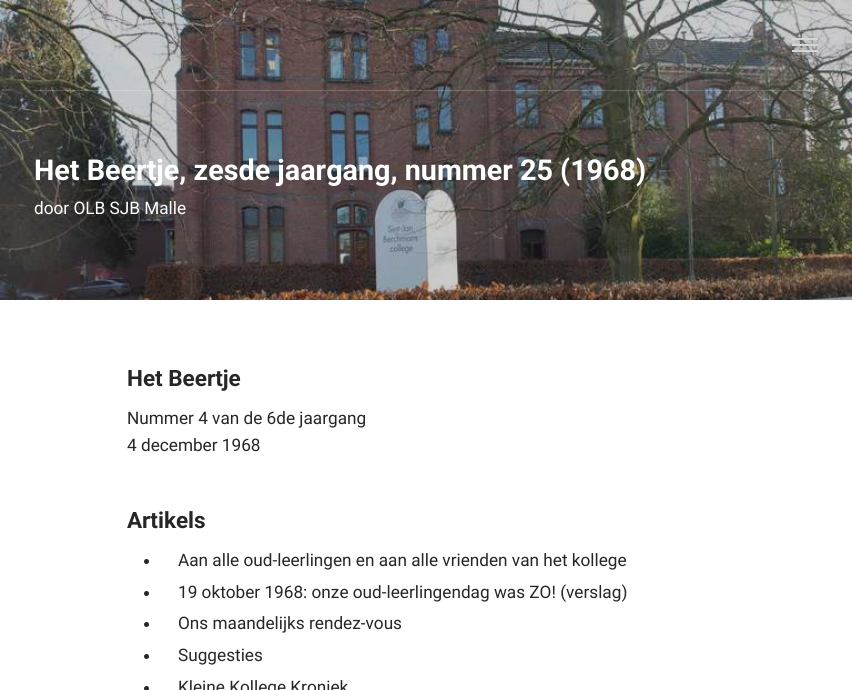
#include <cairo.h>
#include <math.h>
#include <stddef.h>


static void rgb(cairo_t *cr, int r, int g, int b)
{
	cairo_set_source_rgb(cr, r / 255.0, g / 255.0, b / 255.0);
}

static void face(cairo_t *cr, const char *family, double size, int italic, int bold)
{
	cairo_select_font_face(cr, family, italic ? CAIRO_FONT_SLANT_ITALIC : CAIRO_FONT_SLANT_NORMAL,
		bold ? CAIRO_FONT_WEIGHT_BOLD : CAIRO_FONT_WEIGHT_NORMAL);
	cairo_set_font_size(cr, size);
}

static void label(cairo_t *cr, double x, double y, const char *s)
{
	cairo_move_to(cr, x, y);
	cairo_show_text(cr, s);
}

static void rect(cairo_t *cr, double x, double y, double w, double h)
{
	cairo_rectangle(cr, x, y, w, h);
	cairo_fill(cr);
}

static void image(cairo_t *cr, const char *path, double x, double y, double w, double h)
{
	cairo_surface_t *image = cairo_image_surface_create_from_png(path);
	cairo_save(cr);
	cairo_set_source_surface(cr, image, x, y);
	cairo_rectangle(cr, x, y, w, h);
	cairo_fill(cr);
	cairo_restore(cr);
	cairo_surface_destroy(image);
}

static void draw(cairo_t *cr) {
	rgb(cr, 255, 255, 255);
	cairo_paint(cr);
	image(cr, "image0.png", 0, 0, 852, 300);
	cairo_set_source_rgba(cr, 1, 1, 1, 0.2);
	rect(cr, 34, 90, 784, 1);
	rgb(cr, 213, 213, 213);
	rect(cr, 792, 44, 26, 2);
	rect(cr, 792, 38, 26, 2);
	rect(cr, 792, 50, 26, 2);
	face(cr, "Roboto", 28.75, 0, 1);
	rgb(cr, 255, 255, 255);
	label(cr, 34, 180, "Het Beertje, zesde jaargang, nummer 25 (1968)");
	face(cr, "Roboto", 17.2, 0, 0);
	label(cr, 34, 214, "door OLB SJB Malle");
	face(cr, "Roboto", 22.5, 0, 1);
	rgb(cr, 38, 38, 38);
	label(cr, 127, 386, "Het Beertje");
	face(cr, "Roboto", 17.2, 0, 0);
	label(cr, 127, 424, "Nummer 4 van de 6de jaargang");
	label(cr, 127, 451, "4 december 1968");
	face(cr, "Roboto", 22.5, 0, 1);
	label(cr, 127, 528, "Artikels");
	cairo_new_path(cr);
	cairo_arc(cr, 146.5, 561.5, 2.5, 0, 2 * M_PI);
	cairo_fill(cr);
	face(cr, "Roboto", 17.2, 0, 0);
	label(cr, 178, 566, "Aan alle oud-leerlingen en aan alle vrienden van het kollege");
	cairo_new_path(cr);
	cairo_arc(cr, 146.5, 593.5, 2.5, 0, 2 * M_PI);
	cairo_fill(cr);
	label(cr, 178, 598, "19 oktober 1968: onze oud-leerlingendag was ZO! (verslag)");
	cairo_new_path(cr);
	cairo_arc(cr, 146.5, 624.5, 2.5, 0, 2 * M_PI);
	cairo_fill(cr);
	label(cr, 178, 629, "Ons maandelijks rendez-vous");
	cairo_new_path(cr);
	cairo_arc(cr, 146.5, 656.5, 2.5, 0, 2 * M_PI);
	cairo_fill(cr);
	label(cr, 178, 661, "Suggesties");
	cairo_new_path(cr);
	cairo_arc(cr, 146.5, 688.5, 2.5, 0, 2 * M_PI);
	cairo_fill(cr);
	label(cr, 178, 693, "Kleine Kollege Kroniek");
}

int main(void) {
	cairo_surface_t *surface = cairo_image_surface_create(CAIRO_FORMAT_RGB24, 852, 690);
	cairo_t *cr = cairo_create(surface);
	cairo_font_options_t *options = cairo_font_options_create();
	cairo_font_options_set_hint_metrics(options, CAIRO_HINT_METRICS_OFF);
	cairo_font_options_set_hint_style(options, CAIRO_HINT_STYLE_NONE);
	cairo_set_font_options(cr, options);
	cairo_set_miter_limit(cr, 4);
	draw(cr);
	cairo_surface_write_to_png(surface, "render.png");
	cairo_font_options_destroy(options);
	cairo_destroy(cr);
	cairo_surface_destroy(surface);
	return 0;
}
